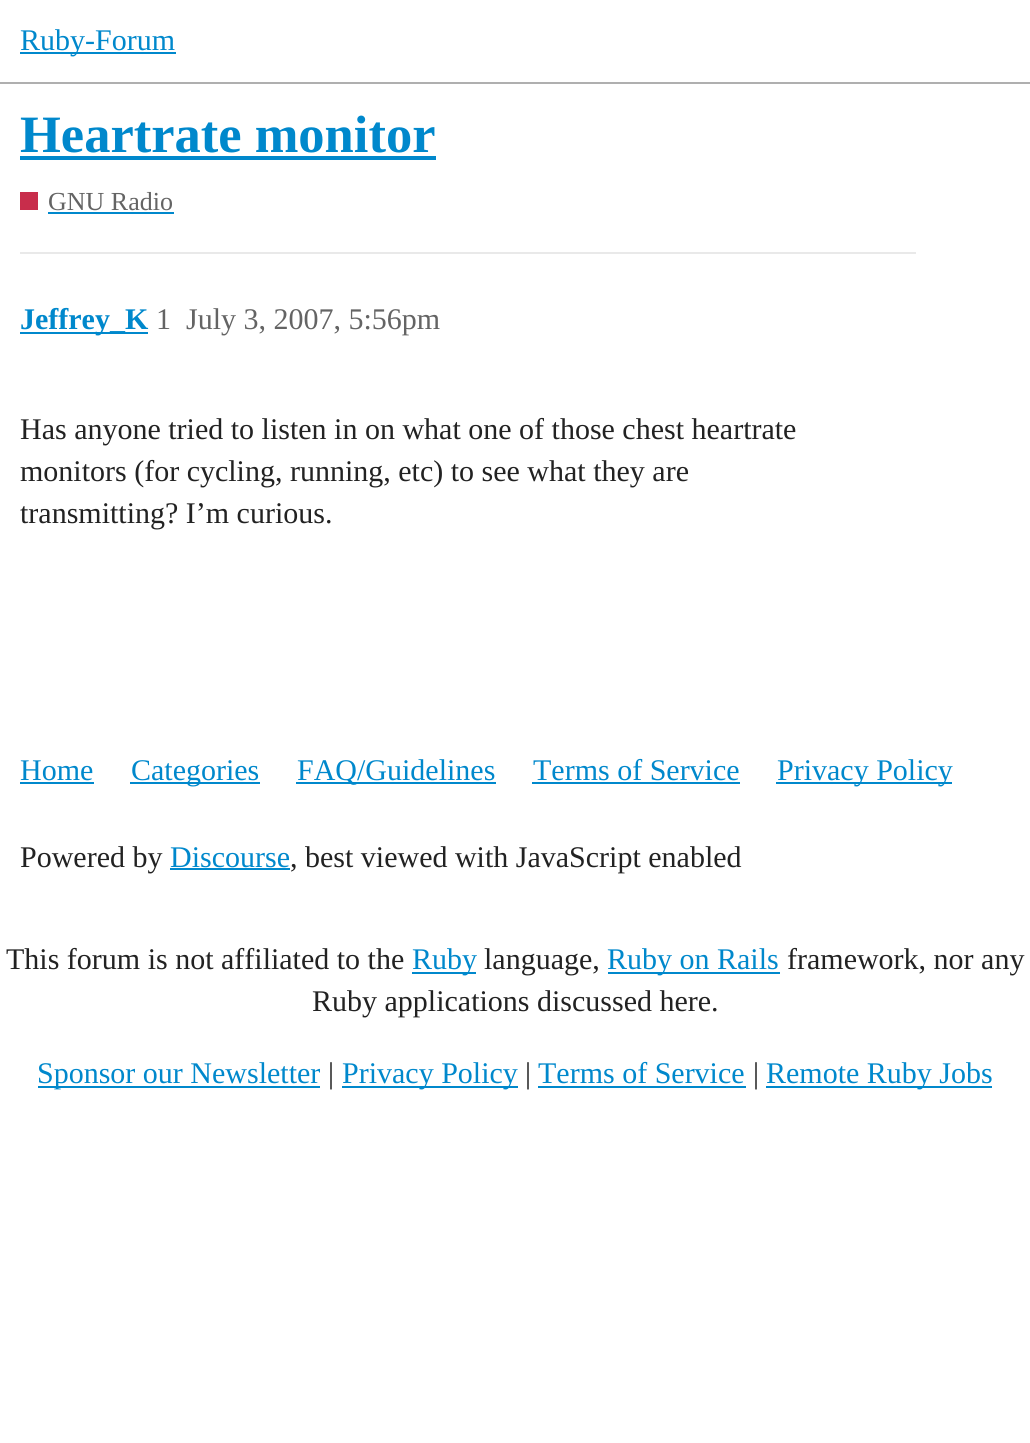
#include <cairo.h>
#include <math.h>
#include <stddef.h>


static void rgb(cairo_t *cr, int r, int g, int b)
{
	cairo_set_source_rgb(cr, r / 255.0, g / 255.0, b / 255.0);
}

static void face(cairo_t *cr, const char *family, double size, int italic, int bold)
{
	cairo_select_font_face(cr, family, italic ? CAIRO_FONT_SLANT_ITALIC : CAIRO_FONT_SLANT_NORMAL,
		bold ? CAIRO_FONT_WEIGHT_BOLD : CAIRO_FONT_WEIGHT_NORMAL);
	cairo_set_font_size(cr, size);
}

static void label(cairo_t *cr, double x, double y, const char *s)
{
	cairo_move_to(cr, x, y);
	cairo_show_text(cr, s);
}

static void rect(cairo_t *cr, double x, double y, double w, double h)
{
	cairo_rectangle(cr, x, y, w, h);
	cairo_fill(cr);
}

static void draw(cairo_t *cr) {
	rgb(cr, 255, 255, 255);
	cairo_paint(cr);
	rgb(cr, 175, 175, 175);
	rect(cr, 0, 82, 1030, 2);
	rgb(cr, 0, 136, 204);
	rect(cr, 20, 52, 156, 2);
	face(cr, "Liberation Serif", 30, 0, 0);
	label(cr, 20, 50, "Ruby-Forum");
	face(cr, "Liberation Serif", 52.5, 0, 1);
	label(cr, 20, 152, "Heartrate monitor");
	rect(cr, 20, 156, 416, 4);
	rgb(cr, 200, 45, 75);
	rect(cr, 20, 192, 18, 18);
	face(cr, "Liberation Serif", 26, 0, 0);
	rgb(cr, 100, 100, 100);
	label(cr, 48, 210, "GNU Radio");
	rgb(cr, 0, 136, 204);
	rect(cr, 48, 212, 126, 2);
	rgb(cr, 233, 233, 233);
	rect(cr, 20, 252, 896, 2);
	rgb(cr, 0, 136, 204);
	rect(cr, 20, 332, 128, 2);
	face(cr, "Liberation Serif", 30, 0, 1);
	label(cr, 20, 329, "Jeffrey_K");
	face(cr, "Liberation Serif", 30, 0, 0);
	rgb(cr, 100, 100, 100);
	label(cr, 156, 329, "1");
	label(cr, 186, 329, "July 3, 2007, 5:56pm");
	rgb(cr, 34, 34, 34);
	label(cr, 20, 439, "Has anyone tried to listen in on what one of those chest heartrate");
	label(cr, 20, 481, "monitors (for cycling, running, etc) to see what they are");
	label(cr, 20, 523, "transmitting? I’m curious.");
	rgb(cr, 0, 136, 204);
	label(cr, 20, 780, "Home");
	rect(cr, 20, 782, 74, 2);
	rect(cr, 130, 782, 130, 2);
	label(cr, 131, 780, "Categories");
	rect(cr, 296, 782, 200, 2);
	label(cr, 297, 780, "FAQ/Guidelines");
	label(cr, 533, 780, "Terms of Service");
	rect(cr, 532, 782, 208, 2);
	rect(cr, 776, 782, 176, 2);
	label(cr, 777, 780, "Privacy Policy");
	rgb(cr, 34, 34, 34);
	label(cr, 20, 867, "Powered by");
	rgb(cr, 0, 136, 204);
	label(cr, 170, 867, "Discourse");
	rect(cr, 170, 868, 120, 2);
	rgb(cr, 34, 34, 34);
	label(cr, 290, 867, ", best viewed with JavaScript enabled");
	label(cr, 6, 969, "This forum is not affiliated to the");
	rgb(cr, 0, 136, 204);
	rect(cr, 412, 972, 64, 2);
	label(cr, 412, 969, "Ruby");
	rgb(cr, 34, 34, 34);
	label(cr, 484, 969, "language,");
	rgb(cr, 0, 136, 204);
	rect(cr, 608, 972, 172, 2);
	label(cr, 607, 969, "Ruby on Rails");
	rgb(cr, 34, 34, 34);
	label(cr, 787, 969, "framework, nor any");
	label(cr, 312, 1011, "Ruby applications discussed here.");
	rgb(cr, 0, 136, 204);
	rect(cr, 38, 1086, 282, 2);
	label(cr, 37, 1083, "Sponsor our Newsletter");
	rgb(cr, 34, 34, 34);
	label(cr, 328, 1083, "|");
	rgb(cr, 0, 136, 204);
	rect(cr, 342, 1086, 176, 2);
	label(cr, 342, 1083, "Privacy Policy");
	rgb(cr, 34, 34, 34);
	label(cr, 525, 1083, "|");
	rgb(cr, 0, 136, 204);
	label(cr, 538, 1083, "Terms of Service");
	rect(cr, 538, 1086, 208, 2);
	rgb(cr, 34, 34, 34);
	label(cr, 753, 1083, "|");
	rgb(cr, 0, 136, 204);
	rect(cr, 766, 1086, 226, 2);
	label(cr, 766, 1083, "Remote Ruby Jobs");
}

int main(void) {
	cairo_surface_t *surface = cairo_image_surface_create(CAIRO_FORMAT_RGB24, 1030, 1443);
	cairo_t *cr = cairo_create(surface);
	cairo_font_options_t *options = cairo_font_options_create();
	cairo_font_options_set_hint_metrics(options, CAIRO_HINT_METRICS_OFF);
	cairo_font_options_set_hint_style(options, CAIRO_HINT_STYLE_NONE);
	cairo_set_font_options(cr, options);
	cairo_set_miter_limit(cr, 4);
	draw(cr);
	cairo_surface_write_to_png(surface, "render.png");
	cairo_font_options_destroy(options);
	cairo_destroy(cr);
	cairo_surface_destroy(surface);
	return 0;
}
